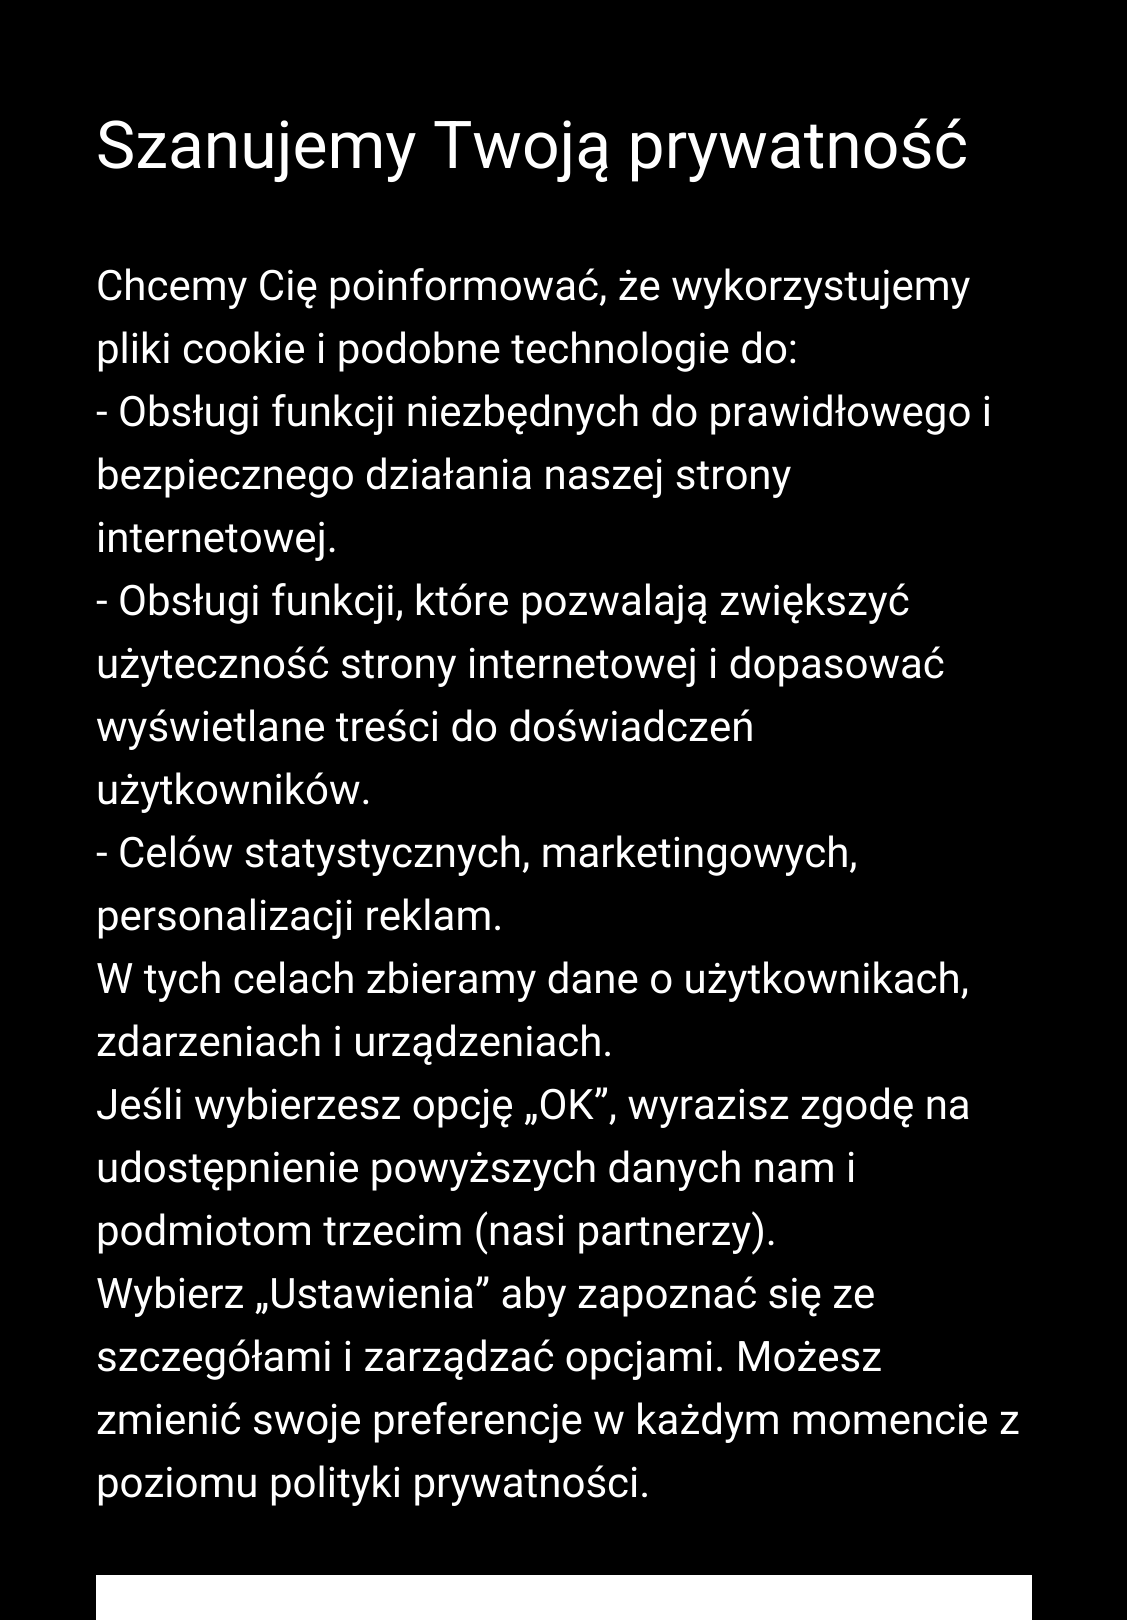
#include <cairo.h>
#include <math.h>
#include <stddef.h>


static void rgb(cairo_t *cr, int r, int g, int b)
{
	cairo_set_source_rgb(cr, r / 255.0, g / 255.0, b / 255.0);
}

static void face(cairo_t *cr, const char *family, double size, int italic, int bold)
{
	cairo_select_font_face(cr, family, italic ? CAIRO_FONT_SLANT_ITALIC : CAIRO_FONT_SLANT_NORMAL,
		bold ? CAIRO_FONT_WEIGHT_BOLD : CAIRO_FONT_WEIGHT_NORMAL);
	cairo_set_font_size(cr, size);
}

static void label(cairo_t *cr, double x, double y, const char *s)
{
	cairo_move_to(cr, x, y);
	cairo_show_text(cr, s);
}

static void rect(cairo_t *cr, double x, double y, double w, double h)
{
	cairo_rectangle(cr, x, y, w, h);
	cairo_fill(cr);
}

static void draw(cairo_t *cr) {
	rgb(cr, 0, 0, 0);
	cairo_paint(cr);
	face(cr, "Roboto", 66, 0, 0);
	rgb(cr, 255, 255, 255);
	label(cr, 96, 168, "Szanujemy Twoją prywatność");
	face(cr, "Roboto", 42, 0, 0);
	label(cr, 96, 300, "Chcemy Cię poinformować, że wykorzystujemy");
	label(cr, 96, 363, "pliki cookie i podobne technologie do:");
	label(cr, 96, 426, "- Obsługi funkcji niezbędnych do prawidłowego i");
	label(cr, 96, 489, "bezpiecznego działania naszej strony");
	label(cr, 96, 552, "internetowej.");
	label(cr, 96, 615, "- Obsługi funkcji, które pozwalają zwiększyć");
	label(cr, 96, 678, "użyteczność strony internetowej i dopasować");
	label(cr, 96, 741, "wyświetlane treści do doświadczeń");
	label(cr, 96, 804, "użytkowników.");
	label(cr, 96, 867, "- Celów statystycznych, marketingowych,");
	label(cr, 96, 930, "personalizacji reklam.");
	label(cr, 96, 993, "W tych celach zbieramy dane o użytkownikach,");
	label(cr, 96, 1056, "zdarzeniach i urządzeniach.");
	label(cr, 96, 1119, "Jeśli wybierzesz opcję „OK”, wyrazisz zgodę na");
	label(cr, 96, 1182, "udostępnienie powyższych danych nam i");
	label(cr, 96, 1245, "podmiotom trzecim (nasi partnerzy).");
	label(cr, 96, 1308, "Wybierz „Ustawienia” aby zapoznać się ze");
	label(cr, 96, 1371, "szczegółami i zarządzać opcjami. Możesz");
	label(cr, 96, 1434, "zmienić swoje preferencje w każdym momencie z");
	label(cr, 96, 1497, "poziomu polityki prywatności.");
	rect(cr, 96, 1575, 936, 45);
}

int main(void) {
	cairo_surface_t *surface = cairo_image_surface_create(CAIRO_FORMAT_RGB24, 1127, 1620);
	cairo_t *cr = cairo_create(surface);
	cairo_font_options_t *options = cairo_font_options_create();
	cairo_font_options_set_hint_metrics(options, CAIRO_HINT_METRICS_OFF);
	cairo_font_options_set_hint_style(options, CAIRO_HINT_STYLE_NONE);
	cairo_set_font_options(cr, options);
	cairo_set_miter_limit(cr, 4);
	draw(cr);
	cairo_surface_write_to_png(surface, "render.png");
	cairo_font_options_destroy(options);
	cairo_destroy(cr);
	cairo_surface_destroy(surface);
	return 0;
}
